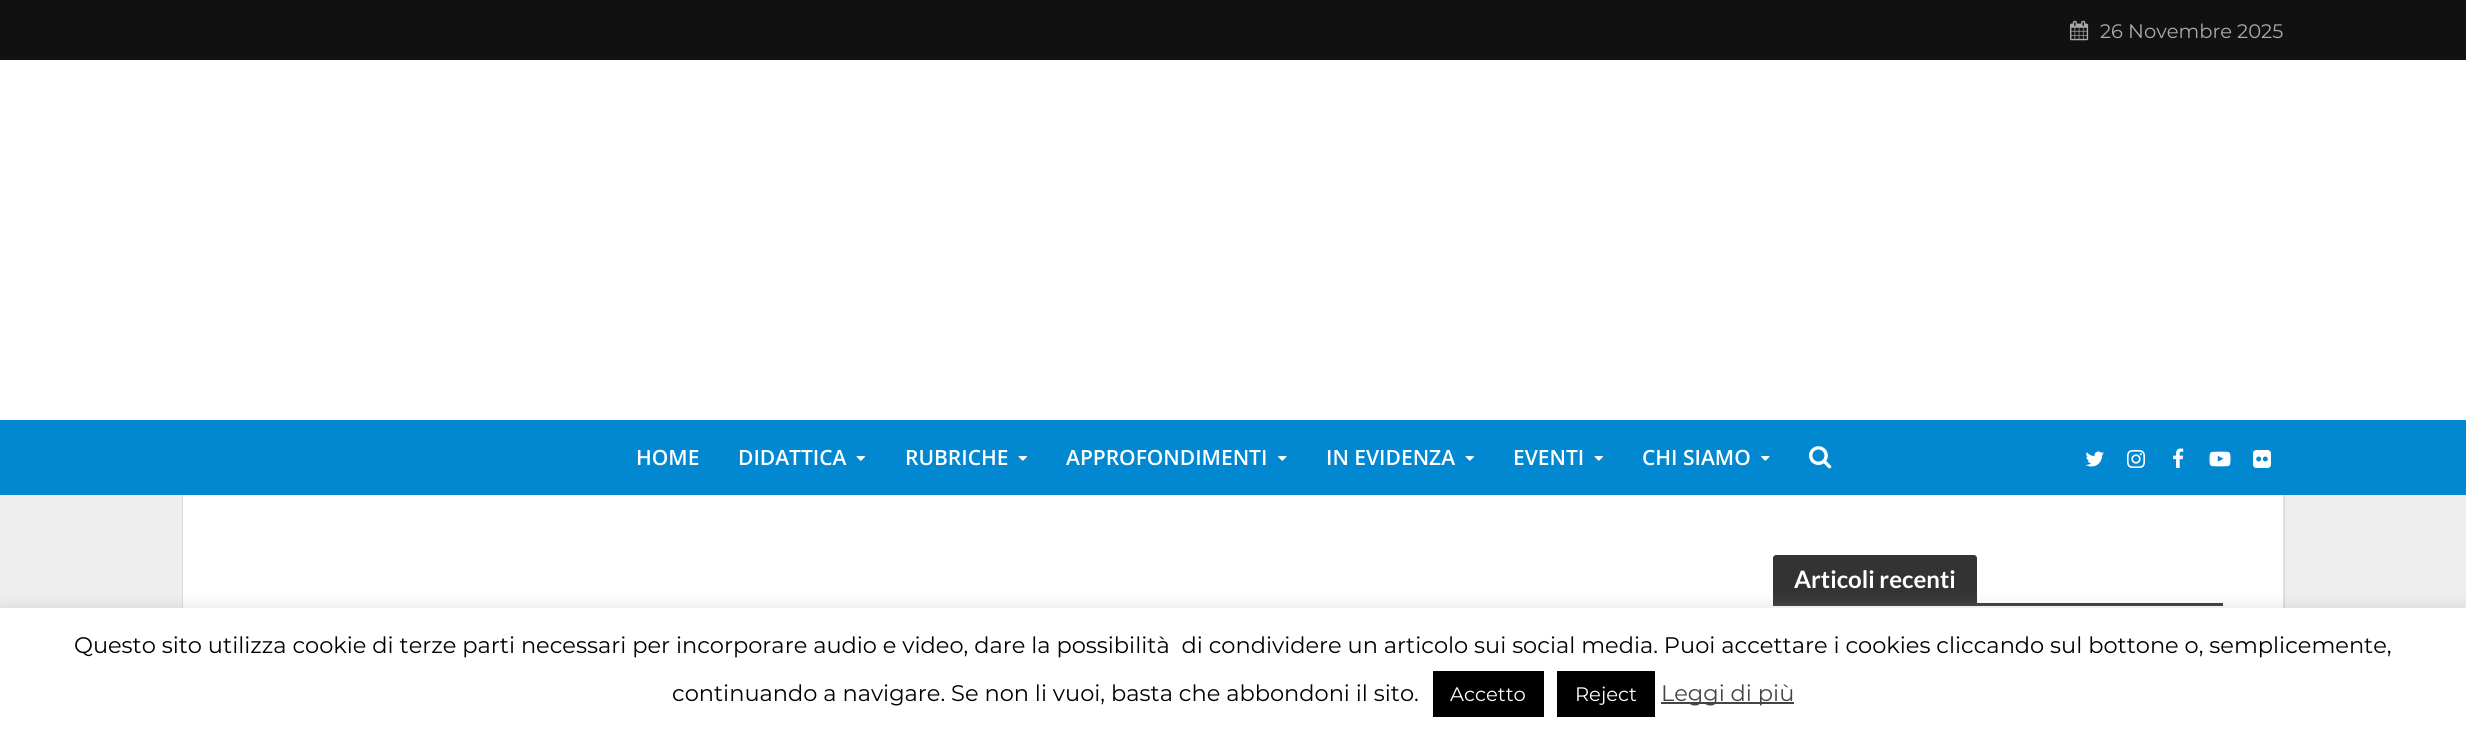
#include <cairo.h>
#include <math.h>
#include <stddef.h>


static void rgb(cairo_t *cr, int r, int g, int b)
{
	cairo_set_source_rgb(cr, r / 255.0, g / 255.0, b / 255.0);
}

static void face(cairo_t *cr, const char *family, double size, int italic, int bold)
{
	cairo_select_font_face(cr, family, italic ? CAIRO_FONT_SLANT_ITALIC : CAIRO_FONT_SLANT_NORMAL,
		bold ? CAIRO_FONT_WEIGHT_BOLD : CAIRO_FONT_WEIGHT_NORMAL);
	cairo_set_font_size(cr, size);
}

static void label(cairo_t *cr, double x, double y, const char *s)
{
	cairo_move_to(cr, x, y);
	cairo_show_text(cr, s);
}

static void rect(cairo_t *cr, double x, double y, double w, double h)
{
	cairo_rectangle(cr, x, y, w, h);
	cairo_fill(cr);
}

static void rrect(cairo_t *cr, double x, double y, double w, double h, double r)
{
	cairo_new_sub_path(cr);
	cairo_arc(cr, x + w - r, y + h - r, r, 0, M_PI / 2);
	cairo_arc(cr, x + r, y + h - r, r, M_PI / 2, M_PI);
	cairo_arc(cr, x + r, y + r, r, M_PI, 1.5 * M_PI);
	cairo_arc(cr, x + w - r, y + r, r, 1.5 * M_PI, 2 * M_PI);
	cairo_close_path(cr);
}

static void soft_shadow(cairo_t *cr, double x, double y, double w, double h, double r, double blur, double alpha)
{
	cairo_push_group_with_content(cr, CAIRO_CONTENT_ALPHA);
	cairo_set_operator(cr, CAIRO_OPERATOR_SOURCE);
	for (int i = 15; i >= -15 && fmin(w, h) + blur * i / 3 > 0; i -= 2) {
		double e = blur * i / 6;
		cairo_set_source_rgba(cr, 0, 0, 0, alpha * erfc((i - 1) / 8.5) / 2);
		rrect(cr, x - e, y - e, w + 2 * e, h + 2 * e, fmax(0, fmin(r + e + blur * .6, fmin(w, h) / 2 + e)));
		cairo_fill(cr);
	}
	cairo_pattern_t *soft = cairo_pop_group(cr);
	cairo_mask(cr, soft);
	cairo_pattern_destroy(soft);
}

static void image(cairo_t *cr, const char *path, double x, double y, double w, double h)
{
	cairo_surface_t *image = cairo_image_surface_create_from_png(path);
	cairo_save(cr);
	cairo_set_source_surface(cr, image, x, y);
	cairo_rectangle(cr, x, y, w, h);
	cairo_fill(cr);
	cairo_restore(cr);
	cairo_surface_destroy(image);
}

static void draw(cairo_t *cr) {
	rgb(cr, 238, 238, 238);
	cairo_paint(cr);
	rgb(cr, 17, 17, 17);
	rect(cr, 0, 0, 2466, 60);
	image(cr, "image0.png", 2070, 20, 19, 21);
	face(cr, "Montserrat Thin", 19.5, 0, 0);
	rgb(cr, 170, 170, 170);
	label(cr, 2100, 38, "26 Novembre 2025");
	rgb(cr, 255, 255, 255);
	rect(cr, 0, 60, 2466, 360);
	cairo_rectangle(cr, 183, 495, 2101, 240);
	rgb(cr, 221, 221, 221);
	cairo_stroke(cr);
	rgb(cr, 2, 136, 209);
	rect(cr, 0, 420, 2466, 75);
	face(cr, "Open Sans SemiBold", 21, 0, 0);
	rgb(cr, 255, 255, 255);
	label(cr, 636, 465, "HOME");
	label(cr, 738, 465, "DIDATTICA");
	image(cr, "image1.png", 856, 456, 9, 5);
	label(cr, 905, 465, "RUBRICHE");
	image(cr, "image1.png", 1018, 456, 9, 5);
	label(cr, 1066, 465, "APPROFONDIMENTI");
	image(cr, "image2.png", 1278, 456, 9, 5);
	label(cr, 1326, 465, "IN EVIDENZA");
	image(cr, "image1.png", 1465, 456, 9, 5);
	label(cr, 1513, 465, "EVENTI");
	image(cr, "image1.png", 1594, 456, 9, 5);
	label(cr, 1642, 465, "CHI SIAMO");
	image(cr, "image2.png", 1761, 456, 9, 5);
	image(cr, "image3.png", 1809, 446, 23, 23);
	image(cr, "image4.png", 2085, 451, 19, 16);
	image(cr, "image5.png", 2127, 450, 18, 18);
	image(cr, "image6.png", 2173, 448, 11, 20);
	image(cr, "image7.png", 2209, 451, 22, 16);
	image(cr, "image8.png", 2253, 450, 18, 18);
	rect(cr, 183, 495, 2100, 113);
	rgb(cr, 51, 51, 51);
	cairo_new_path(cr);
	cairo_move_to(cr, 1776, 555);
	cairo_line_to(cr, 1974, 555);
	cairo_curve_to(cr, 1975.5, 555, 1977, 556.5, 1977, 558);
	cairo_line_to(cr, 1977, 603);
	cairo_line_to(cr, 1773, 603);
	cairo_line_to(cr, 1773, 558);
	cairo_curve_to(cr, 1773, 556.5, 1774.5, 555, 1776, 555);
	cairo_close_path(cr);
	cairo_fill(cr);
	face(cr, "Lato", 24, 0, 1);
	rgb(cr, 255, 255, 255);
	label(cr, 1794, 588, "Articoli recenti");
	rgb(cr, 51, 51, 51);
	rect(cr, 1773, 603, 450, 3);
	rgb(cr, 172, 171, 171);
	soft_shadow(cr, 0, 606, 2466, 128, 0, 7.5, 0.3);
	rgb(cr, 255, 255, 255);
	rect(cr, 0, 608, 2466, 126);
	face(cr, "Montserrat Thin", 22.5, 0, 0);
	rgb(cr, 0, 0, 0);
	label(cr, 74, 653, "Questo sito utilizza cookie di terze parti necessari per incorporare audio e video, dare la possibilità  di condividere un articolo sui social media. Puoi accettare i cookies cliccando sul bottone o, semplicemente,");
	label(cr, 672, 701, "continuando a navigare. Se non li vuoi, basta che abbondoni il sito.");
	rect(cr, 1433, 671, 111, 46);
	face(cr, "Montserrat Thin", 19.5, 0, 0);
	rgb(cr, 255, 255, 255);
	label(cr, 1450, 701, "Accetto");
	rgb(cr, 0, 0, 0);
	rect(cr, 1557, 671, 98, 46);
	rgb(cr, 255, 255, 255);
	label(cr, 1575, 701, "Reject");
	rgb(cr, 68, 68, 68);
	rect(cr, 1661, 702, 133, 2);
	face(cr, "Montserrat Thin", 22.5, 0, 0);
	label(cr, 1661, 701, "Leggi di più");
}

int main(void) {
	cairo_surface_t *surface = cairo_image_surface_create(CAIRO_FORMAT_RGB24, 2466, 734);
	cairo_t *cr = cairo_create(surface);
	cairo_font_options_t *options = cairo_font_options_create();
	cairo_font_options_set_hint_metrics(options, CAIRO_HINT_METRICS_OFF);
	cairo_font_options_set_hint_style(options, CAIRO_HINT_STYLE_NONE);
	cairo_set_font_options(cr, options);
	cairo_set_miter_limit(cr, 4);
	draw(cr);
	cairo_surface_write_to_png(surface, "render.png");
	cairo_font_options_destroy(options);
	cairo_destroy(cr);
	cairo_surface_destroy(surface);
	return 0;
}
